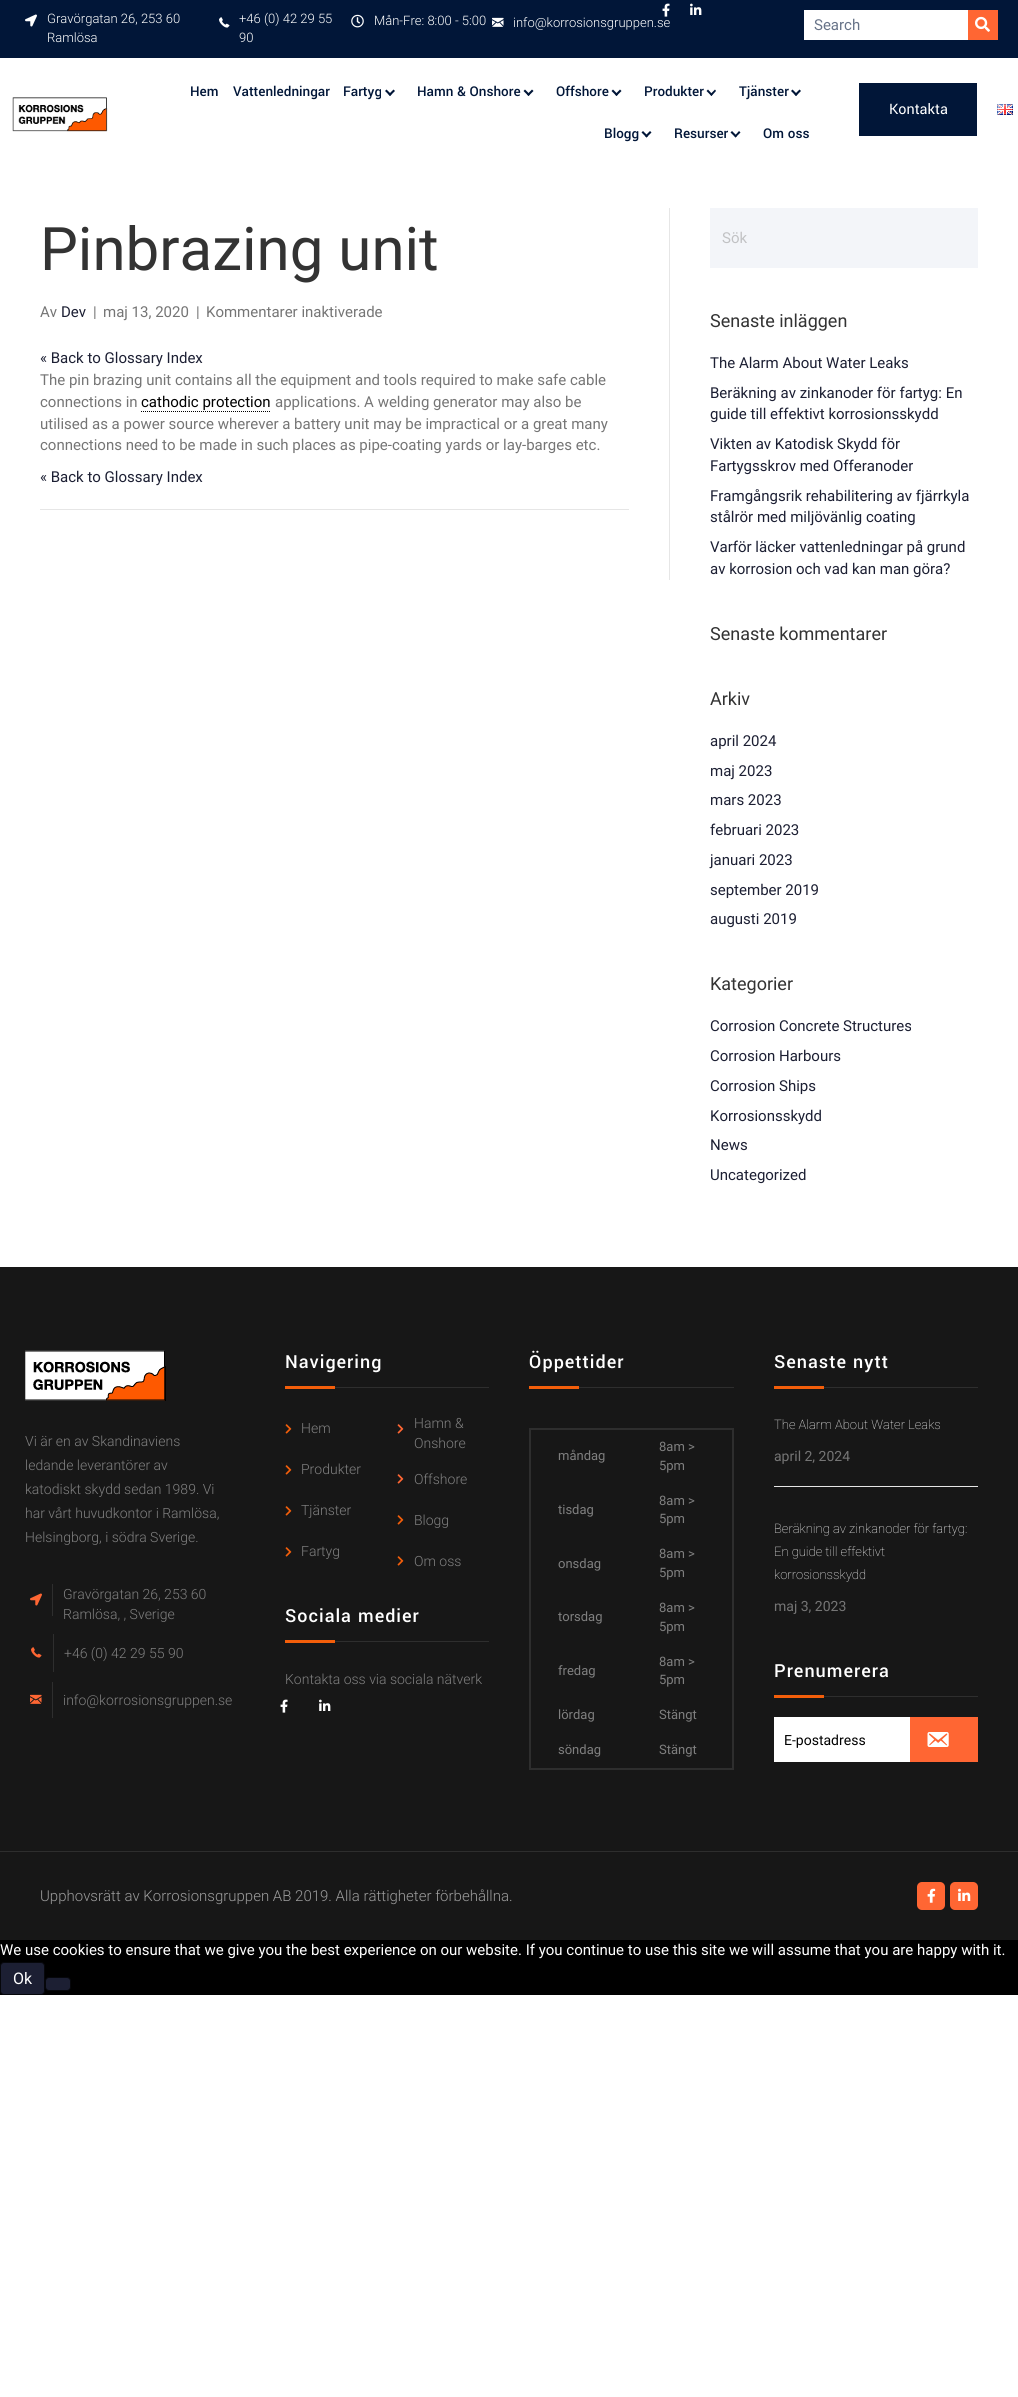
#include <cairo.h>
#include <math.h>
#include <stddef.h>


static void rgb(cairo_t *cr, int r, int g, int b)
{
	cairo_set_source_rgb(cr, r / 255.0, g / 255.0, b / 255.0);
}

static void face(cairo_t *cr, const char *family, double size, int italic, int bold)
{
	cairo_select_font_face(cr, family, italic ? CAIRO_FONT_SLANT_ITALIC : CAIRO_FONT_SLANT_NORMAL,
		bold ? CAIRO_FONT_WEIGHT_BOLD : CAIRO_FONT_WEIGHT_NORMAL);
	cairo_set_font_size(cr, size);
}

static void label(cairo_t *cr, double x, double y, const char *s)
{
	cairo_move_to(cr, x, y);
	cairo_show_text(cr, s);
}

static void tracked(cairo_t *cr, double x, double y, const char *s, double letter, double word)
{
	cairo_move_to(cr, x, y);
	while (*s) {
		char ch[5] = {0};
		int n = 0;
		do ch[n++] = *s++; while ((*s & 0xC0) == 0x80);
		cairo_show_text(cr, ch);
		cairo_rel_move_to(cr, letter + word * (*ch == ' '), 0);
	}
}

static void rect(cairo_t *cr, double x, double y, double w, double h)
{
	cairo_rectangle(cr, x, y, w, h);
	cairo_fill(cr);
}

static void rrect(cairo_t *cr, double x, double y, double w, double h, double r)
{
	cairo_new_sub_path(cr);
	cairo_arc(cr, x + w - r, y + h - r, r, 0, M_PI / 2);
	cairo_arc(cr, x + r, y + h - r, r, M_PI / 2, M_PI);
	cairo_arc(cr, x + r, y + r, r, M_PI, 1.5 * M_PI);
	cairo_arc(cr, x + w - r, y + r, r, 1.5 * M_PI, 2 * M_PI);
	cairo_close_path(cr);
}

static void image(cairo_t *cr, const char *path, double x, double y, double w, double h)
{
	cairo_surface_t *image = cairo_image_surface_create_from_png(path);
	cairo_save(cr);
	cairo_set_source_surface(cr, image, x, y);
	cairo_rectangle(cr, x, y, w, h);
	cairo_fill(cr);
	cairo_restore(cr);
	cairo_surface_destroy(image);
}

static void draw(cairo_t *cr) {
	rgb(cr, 255, 255, 255);
	cairo_paint(cr);
	rgb(cr, 1, 22, 56);
	rect(cr, 0, 0, 1018, 58);
	image(cr, "image0.png", 662, 3, 8, 14);
	image(cr, "image1.png", 690, 3, 12, 12);
	image(cr, "image2.png", 25, 14, 12, 13);
	face(cr, "Roboto Light", 13, 0, 0);
	rgb(cr, 255, 255, 255);
	label(cr, 47, 23, "Gravörgatan 26, 253 60");
	label(cr, 47, 42, "Ramlösa");
	image(cr, "image3.png", 219, 17, 11, 11);
	label(cr, 239, 23, "+46 (0) 42 29 55");
	label(cr, 239, 42, "90");
	image(cr, "image4.png", 351, 14, 13, 14);
	label(cr, 374, 25, "Mån-Fre: 8:00 - 5:00");
	image(cr, "image5.png", 492, 17, 12, 10);
	label(cr, 513, 27, "info@korrosionsgruppen.se");
	rect(cr, 804, 10, 164, 30);
	face(cr, "Roboto", 15, 0, 0);
	rgb(cr, 103, 115, 136);
	label(cr, 814, 30, "Search");
	rgb(cr, 255, 102, 51);
	rect(cr, 968, 10, 30, 30);
	image(cr, "image6.png", 975, 16, 15, 16);
	image(cr, "image7.png", 12, 97, 96, 35);
	face(cr, "Yantramanav Medium", 15, 0, 0);
	rgb(cr, 1, 22, 56);
	label(cr, 190, 96, "Hem");
	label(cr, 233, 96, "Vattenledningar");
	label(cr, 343, 96, "Fartyg");
	cairo_new_path(cr);
	cairo_move_to(cr, 393.5, 89.5);
	cairo_line_to(cr, 395, 91);
	cairo_line_to(cr, 390, 96);
	cairo_line_to(cr, 388.5, 94.5);
	cairo_close_path(cr);
	cairo_fill(cr);
	cairo_new_path(cr);
	cairo_move_to(cr, 386.5, 89.5);
	cairo_line_to(cr, 391.5, 94.5);
	cairo_line_to(cr, 390, 96);
	cairo_line_to(cr, 385, 91);
	cairo_close_path(cr);
	cairo_fill(cr);
	label(cr, 417, 96, "Hamn & Onshore");
	cairo_new_path(cr);
	cairo_move_to(cr, 532, 89.5);
	cairo_line_to(cr, 533.5, 91);
	cairo_line_to(cr, 528.5, 96);
	cairo_line_to(cr, 527, 94.5);
	cairo_close_path(cr);
	cairo_fill(cr);
	cairo_new_path(cr);
	cairo_move_to(cr, 525, 89.5);
	cairo_line_to(cr, 530, 94.5);
	cairo_line_to(cr, 528.5, 96);
	cairo_line_to(cr, 523.5, 91);
	cairo_close_path(cr);
	cairo_fill(cr);
	label(cr, 556, 96, "Offshore");
	cairo_new_path(cr);
	cairo_move_to(cr, 620, 89.5);
	cairo_line_to(cr, 621.5, 91);
	cairo_line_to(cr, 616.5, 96);
	cairo_line_to(cr, 615, 94.5);
	cairo_close_path(cr);
	cairo_fill(cr);
	cairo_new_path(cr);
	cairo_move_to(cr, 613, 89.5);
	cairo_line_to(cr, 618, 94.5);
	cairo_line_to(cr, 616.5, 96);
	cairo_line_to(cr, 611.5, 91);
	cairo_close_path(cr);
	cairo_fill(cr);
	label(cr, 644, 96, "Produkter");
	cairo_new_path(cr);
	cairo_move_to(cr, 715, 89.5);
	cairo_line_to(cr, 716, 91);
	cairo_line_to(cr, 711.5, 96);
	cairo_line_to(cr, 710, 94.5);
	cairo_close_path(cr);
	cairo_fill(cr);
	cairo_new_path(cr);
	cairo_move_to(cr, 708, 89.5);
	cairo_line_to(cr, 712.5, 94.5);
	cairo_line_to(cr, 711.5, 96);
	cairo_line_to(cr, 706.5, 91);
	cairo_close_path(cr);
	cairo_fill(cr);
	label(cr, 739, 96, "Tjänster");
	cairo_new_path(cr);
	cairo_move_to(cr, 799.5, 89.5);
	cairo_line_to(cr, 801, 91);
	cairo_line_to(cr, 796, 96);
	cairo_line_to(cr, 794.5, 94.5);
	cairo_close_path(cr);
	cairo_fill(cr);
	cairo_new_path(cr);
	cairo_move_to(cr, 792.5, 89.5);
	cairo_line_to(cr, 797.5, 94.5);
	cairo_line_to(cr, 796, 96);
	cairo_line_to(cr, 791, 91);
	cairo_close_path(cr);
	cairo_fill(cr);
	label(cr, 604, 138, "Blogg");
	cairo_new_path(cr);
	cairo_move_to(cr, 650, 131);
	cairo_line_to(cr, 651.5, 132.5);
	cairo_line_to(cr, 646.5, 137.5);
	cairo_line_to(cr, 645, 136);
	cairo_close_path(cr);
	cairo_fill(cr);
	cairo_new_path(cr);
	cairo_move_to(cr, 643, 131);
	cairo_line_to(cr, 648, 136);
	cairo_line_to(cr, 646.5, 137.5);
	cairo_line_to(cr, 641.5, 132.5);
	cairo_close_path(cr);
	cairo_fill(cr);
	label(cr, 674, 138, "Resurser");
	cairo_new_path(cr);
	cairo_move_to(cr, 739, 131);
	cairo_line_to(cr, 740.5, 132.5);
	cairo_line_to(cr, 735.5, 137.5);
	cairo_line_to(cr, 734.5, 136);
	cairo_close_path(cr);
	cairo_fill(cr);
	cairo_new_path(cr);
	cairo_move_to(cr, 732, 131);
	cairo_line_to(cr, 737, 136);
	cairo_line_to(cr, 735.5, 137.5);
	cairo_line_to(cr, 730.5, 132.5);
	cairo_close_path(cr);
	cairo_fill(cr);
	label(cr, 763, 138, "Om oss");
	rect(cr, 859, 83, 118, 53);
	face(cr, "Yantramanav", 16, 0, 0);
	rgb(cr, 255, 255, 255);
	label(cr, 889, 114, "Kontakta");
	image(cr, "image8.png", 997, 104, 16, 11);
	rgb(cr, 230, 230, 230);
	rect(cr, 669, 208, 1, 372);
	face(cr, "Roboto", 60, 0, 0);
	rgb(cr, 51, 51, 51);
	label(cr, 40, 270, "Pinbrazing unit");
	face(cr, "Roboto", 15, 0, 0);
	rgb(cr, 117, 117, 117);
	label(cr, 40, 317, "Av");
	rgb(cr, 28, 31, 51);
	label(cr, 61, 317, "Dev");
	rgb(cr, 117, 117, 117);
	label(cr, 93, 317, "|");
	label(cr, 103, 317, "maj 13, 2020");
	label(cr, 196, 317, "|");
	label(cr, 206, 317, "Kommentarer inaktiverade");
	rgb(cr, 28, 31, 51);
	label(cr, 40, 363, "« Back to Glossary Index");
	rgb(cr, 117, 117, 117);
	label(cr, 40, 385, "The pin brazing unit contains all the equipment and tools required to make safe cable");
	label(cr, 40, 407, "connections in");
	rgb(cr, 0, 0, 0);
	label(cr, 141, 407, "cathodic protection");
	cairo_new_path(cr);
	cairo_move_to(cr, 141, 411.5);
	cairo_line_to(cr, 271, 411.5);
	cairo_set_line_width(cr, 1);
	cairo_set_dash(cr, (double[]){1, 1}, 2, 0);
	cairo_stroke(cr);
	rgb(cr, 117, 117, 117);
	label(cr, 275, 407, "applications. A welding generator may also be");
	label(cr, 40, 429, "utilised as a power source wherever a battery unit may be impractical or a great many");
	label(cr, 40, 450, "connections need to be made in such places as pipe-coating yards or lay-barges etc.");
	rgb(cr, 28, 31, 51);
	label(cr, 40, 482, "« Back to Glossary Index");
	rgb(cr, 230, 230, 230);
	rect(cr, 40, 509, 589, 1);
	rgb(cr, 243, 245, 249);
	rect(cr, 710, 208, 268, 60);
	rgb(cr, 193, 194, 196);
	label(cr, 722, 243, "Sök");
	face(cr, "Roboto", 18, 0, 0);
	rgb(cr, 51, 51, 51);
	label(cr, 710, 327, "Senaste inläggen");
	face(cr, "Roboto", 15, 0, 0);
	rgb(cr, 28, 31, 51);
	label(cr, 710, 368, "The Alarm About Water Leaks");
	label(cr, 710, 398, "Beräkning av zinkanoder för fartyg: En");
	label(cr, 710, 419, "guide till effektivt korrosionsskydd");
	label(cr, 710, 449, "Vikten av Katodisk Skydd för");
	label(cr, 710, 471, "Fartygsskrov med Offeranoder");
	label(cr, 710, 501, "Framgångsrik rehabilitering av fjärrkyla");
	label(cr, 710, 522, "stålrör med miljövänlig coating");
	label(cr, 710, 552, "Varför läcker vattenledningar på grund");
	label(cr, 710, 574, "av korrosion och vad kan man göra?");
	face(cr, "Roboto", 18, 0, 0);
	rgb(cr, 51, 51, 51);
	label(cr, 710, 640, "Senaste kommentarer");
	label(cr, 710, 705, "Arkiv");
	face(cr, "Roboto", 15, 0, 0);
	rgb(cr, 28, 31, 51);
	label(cr, 710, 746, "april 2024");
	label(cr, 710, 776, "maj 2023");
	label(cr, 710, 805, "mars 2023");
	label(cr, 710, 835, "februari 2023");
	label(cr, 710, 865, "januari 2023");
	label(cr, 710, 895, "september 2019");
	label(cr, 710, 924, "augusti 2019");
	face(cr, "Roboto", 18, 0, 0);
	rgb(cr, 51, 51, 51);
	label(cr, 710, 990, "Kategorier");
	face(cr, "Roboto", 15, 0, 0);
	rgb(cr, 28, 31, 51);
	label(cr, 710, 1031, "Corrosion Concrete Structures");
	label(cr, 710, 1061, "Corrosion Harbours");
	label(cr, 710, 1091, "Corrosion Ships");
	label(cr, 710, 1121, "Korrosionsskydd");
	label(cr, 710, 1150, "News");
	label(cr, 710, 1180, "Uncategorized");
	rgb(cr, 23, 23, 23);
	rect(cr, 0, 1267, 1018, 584);
	image(cr, "image9.png", 25, 1350, 141, 51);
	face(cr, "Roboto Light", 14, 0, 0);
	rgb(cr, 127, 127, 127);
	label(cr, 25, 1446, "Vi är en av Skandinaviens");
	label(cr, 25, 1470, "ledande leverantörer av");
	label(cr, 25, 1494, "katodiskt skydd sedan 1989. Vi");
	label(cr, 25, 1518, "har vårt huvudkontor i Ramlösa,");
	label(cr, 25, 1542, "Helsingborg, i södra Sverige.");
	rgb(cr, 46, 46, 46);
	rect(cr, 52, 1584, 1, 32);
	image(cr, "image10.png", 30, 1593, 12, 13);
	rgb(cr, 127, 127, 127);
	label(cr, 63, 1599, "Gravörgatan 26, 253 60");
	label(cr, 63, 1619, "Ramlösa, , Sverige");
	rgb(cr, 46, 46, 46);
	rect(cr, 53, 1634, 1, 38);
	image(cr, "image11.png", 31, 1647, 11, 11);
	rgb(cr, 127, 127, 127);
	label(cr, 64, 1658, "+46 (0) 42 29 55 90");
	rgb(cr, 46, 46, 46);
	rect(cr, 52, 1682, 1, 36);
	image(cr, "image12.png", 30, 1694, 12, 10);
	rgb(cr, 127, 127, 127);
	label(cr, 63, 1705, "info@korrosionsgruppen.se");
	face(cr, "Yantramanav Medium", 20, 0, 0);
	rgb(cr, 255, 255, 255);
	tracked(cr, 285, 1368, "Navigering", 1, 0);
	rgb(cr, 46, 46, 46);
	rect(cr, 335, 1387, 154, 1);
	rgb(cr, 243, 94, 10);
	rect(cr, 285, 1386, 50, 3);
	image(cr, "image13.png", 285, 1424, 7, 10);
	face(cr, "Roboto Light", 14, 0, 0);
	rgb(cr, 127, 127, 127);
	label(cr, 301, 1433, "Hem");
	image(cr, "image13.png", 285, 1465, 7, 10);
	label(cr, 301, 1474, "Produkter");
	image(cr, "image13.png", 285, 1506, 7, 10);
	label(cr, 301, 1515, "Tjänster");
	image(cr, "image13.png", 285, 1547, 7, 10);
	label(cr, 301, 1556, "Fartyg");
	image(cr, "image14.png", 397, 1424, 7, 10);
	label(cr, 414, 1428, "Hamn &");
	label(cr, 414, 1448, "Onshore");
	image(cr, "image14.png", 397, 1474, 7, 10);
	label(cr, 414, 1484, "Offshore");
	image(cr, "image13.png", 397, 1515, 7, 10);
	label(cr, 414, 1525, "Blogg");
	image(cr, "image13.png", 397, 1556, 7, 10);
	label(cr, 414, 1566, "Om oss");
	face(cr, "Yantramanav Medium", 20, 0, 0);
	rgb(cr, 255, 255, 255);
	tracked(cr, 285, 1622, "Sociala medier", 1, 0);
	rgb(cr, 46, 46, 46);
	rect(cr, 335, 1641, 154, 1);
	rgb(cr, 243, 94, 10);
	rect(cr, 285, 1640, 50, 3);
	face(cr, "Roboto Light", 14, 0, 0);
	rgb(cr, 127, 127, 127);
	label(cr, 285, 1684, "Kontakta oss via sociala nätverk");
	image(cr, "image15.png", 280, 1699, 8, 14);
	image(cr, "image16.png", 319, 1699, 12, 12);
	face(cr, "Yantramanav Medium", 20, 0, 0);
	rgb(cr, 255, 255, 255);
	tracked(cr, 529, 1368, "Öppettider", 1, 0);
	rgb(cr, 46, 46, 46);
	rect(cr, 579, 1387, 155, 1);
	rgb(cr, 243, 94, 10);
	rect(cr, 529, 1386, 50, 3);
	rgb(cr, 46, 46, 46);
	rect(cr, 529, 1428, 205, 2);
	rect(cr, 732, 1428, 2, 342);
	rect(cr, 529, 1768, 205, 2);
	rect(cr, 529, 1428, 2, 342);
	face(cr, "Roboto", 13, 0, 0);
	rgb(cr, 127, 127, 127);
	label(cr, 558, 1460, "måndag");
	label(cr, 659, 1451, "8am >");
	label(cr, 659, 1470, "5pm");
	label(cr, 558, 1514, "tisdag");
	label(cr, 659, 1505, "8am >");
	label(cr, 659, 1523, "5pm");
	label(cr, 558, 1568, "onsdag");
	label(cr, 659, 1558, "8am >");
	label(cr, 659, 1577, "5pm");
	label(cr, 558, 1621, "torsdag");
	label(cr, 659, 1612, "8am >");
	label(cr, 659, 1631, "5pm");
	label(cr, 558, 1675, "fredag");
	label(cr, 659, 1666, "8am >");
	label(cr, 659, 1684, "5pm");
	label(cr, 558, 1719, "lördag");
	label(cr, 659, 1719, "Stängt");
	label(cr, 558, 1754, "söndag");
	label(cr, 659, 1754, "Stängt");
	face(cr, "Yantramanav Medium", 20, 0, 0);
	rgb(cr, 255, 255, 255);
	tracked(cr, 774, 1368, "Senaste nytt", 1, 0);
	rgb(cr, 46, 46, 46);
	rect(cr, 824, 1387, 154, 1);
	rgb(cr, 243, 94, 10);
	rect(cr, 774, 1386, 50, 3);
	rgb(cr, 230, 230, 230);
	rect(cr, 774, 1486, 204, 1);
	face(cr, "Roboto Thin", 13, 0, 0);
	rgb(cr, 255, 255, 255);
	label(cr, 774, 1429, "The Alarm About Water Leaks");
	face(cr, "Roboto", 14, 0, 0);
	rgb(cr, 117, 117, 117);
	label(cr, 774, 1461, "april 2, 2024");
	face(cr, "Roboto Thin", 13, 0, 0);
	rgb(cr, 255, 255, 255);
	label(cr, 774, 1533, "Beräkning av zinkanoder för fartyg:");
	label(cr, 774, 1556, "En guide till effektivt");
	label(cr, 774, 1579, "korrosionsskydd");
	face(cr, "Roboto", 14, 0, 0);
	rgb(cr, 117, 117, 117);
	label(cr, 774, 1611, "maj 3, 2023");
	face(cr, "Yantramanav Medium", 20, 0, 0);
	rgb(cr, 255, 255, 255);
	tracked(cr, 774, 1677, "Prenumerera", 1, 0);
	rgb(cr, 46, 46, 46);
	rect(cr, 824, 1696, 154, 1);
	rgb(cr, 243, 94, 10);
	rect(cr, 774, 1695, 50, 3);
	rgb(cr, 255, 255, 255);
	rect(cr, 774, 1717, 136, 45);
	face(cr, "Roboto", 14, 0, 0);
	rgb(cr, 0, 0, 0);
	label(cr, 784, 1745, "E-postadress");
	rgb(cr, 255, 102, 51);
	rect(cr, 910, 1717, 68, 45);
	image(cr, "image17.png", 927, 1732, 22, 15);
	rgb(cr, 23, 23, 23);
	rect(cr, 0, 1852, 1018, 88);
	rgb(cr, 46, 46, 46);
	rect(cr, 0, 1851, 1018, 1);
	face(cr, "Roboto Light", 15, 0, 0);
	rgb(cr, 156, 156, 156);
	label(cr, 40, 1901, "Upphovsrätt av Korrosionsgruppen AB 2019. Alla rättigheter förbehållna.");
	rgb(cr, 255, 102, 51);
	rrect(cr, 917, 1882, 28, 28, 5);
	cairo_fill(cr);
	image(cr, "image18.png", 927, 1888, 9, 15);
	rrect(cr, 950, 1882, 28, 28, 5);
	cairo_fill(cr);
	image(cr, "image19.png", 958, 1888, 13, 13);
	rgb(cr, 0, 0, 0);
	rect(cr, 0, 1940, 1018, 55);
	face(cr, "Roboto", 15, 0, 0);
	rgb(cr, 255, 255, 255);
	label(cr, 0, 1955, "We use cookies to ensure that we give you the best experience on our website. If you continue to use this site we will assume that you are happy with it.");
	rgb(cr, 28, 31, 51);
	rrect(cr, 0.5, 1962.5, 44, 32, 3.5);
	cairo_fill_preserve(cr);
	rgb(cr, 6, 7, 11);
	cairo_set_dash(cr, NULL, 0, 0);
	cairo_stroke(cr);
	face(cr, "Roboto", 16, 0, 0);
	rgb(cr, 255, 255, 255);
	label(cr, 13, 1984, "Ok");
	rgb(cr, 28, 31, 51);
	rrect(cr, 45.5, 1977.5, 25, 13, 3.5);
	cairo_fill_preserve(cr);
	rgb(cr, 6, 7, 11);
	cairo_stroke(cr);
}

int main(void) {
	cairo_surface_t *surface = cairo_image_surface_create(CAIRO_FORMAT_RGB24, 1018, 2397);
	cairo_t *cr = cairo_create(surface);
	cairo_font_options_t *options = cairo_font_options_create();
	cairo_font_options_set_hint_metrics(options, CAIRO_HINT_METRICS_OFF);
	cairo_font_options_set_hint_style(options, CAIRO_HINT_STYLE_NONE);
	cairo_set_font_options(cr, options);
	cairo_set_miter_limit(cr, 4);
	draw(cr);
	cairo_surface_write_to_png(surface, "render.png");
	cairo_font_options_destroy(options);
	cairo_destroy(cr);
	cairo_surface_destroy(surface);
	return 0;
}
